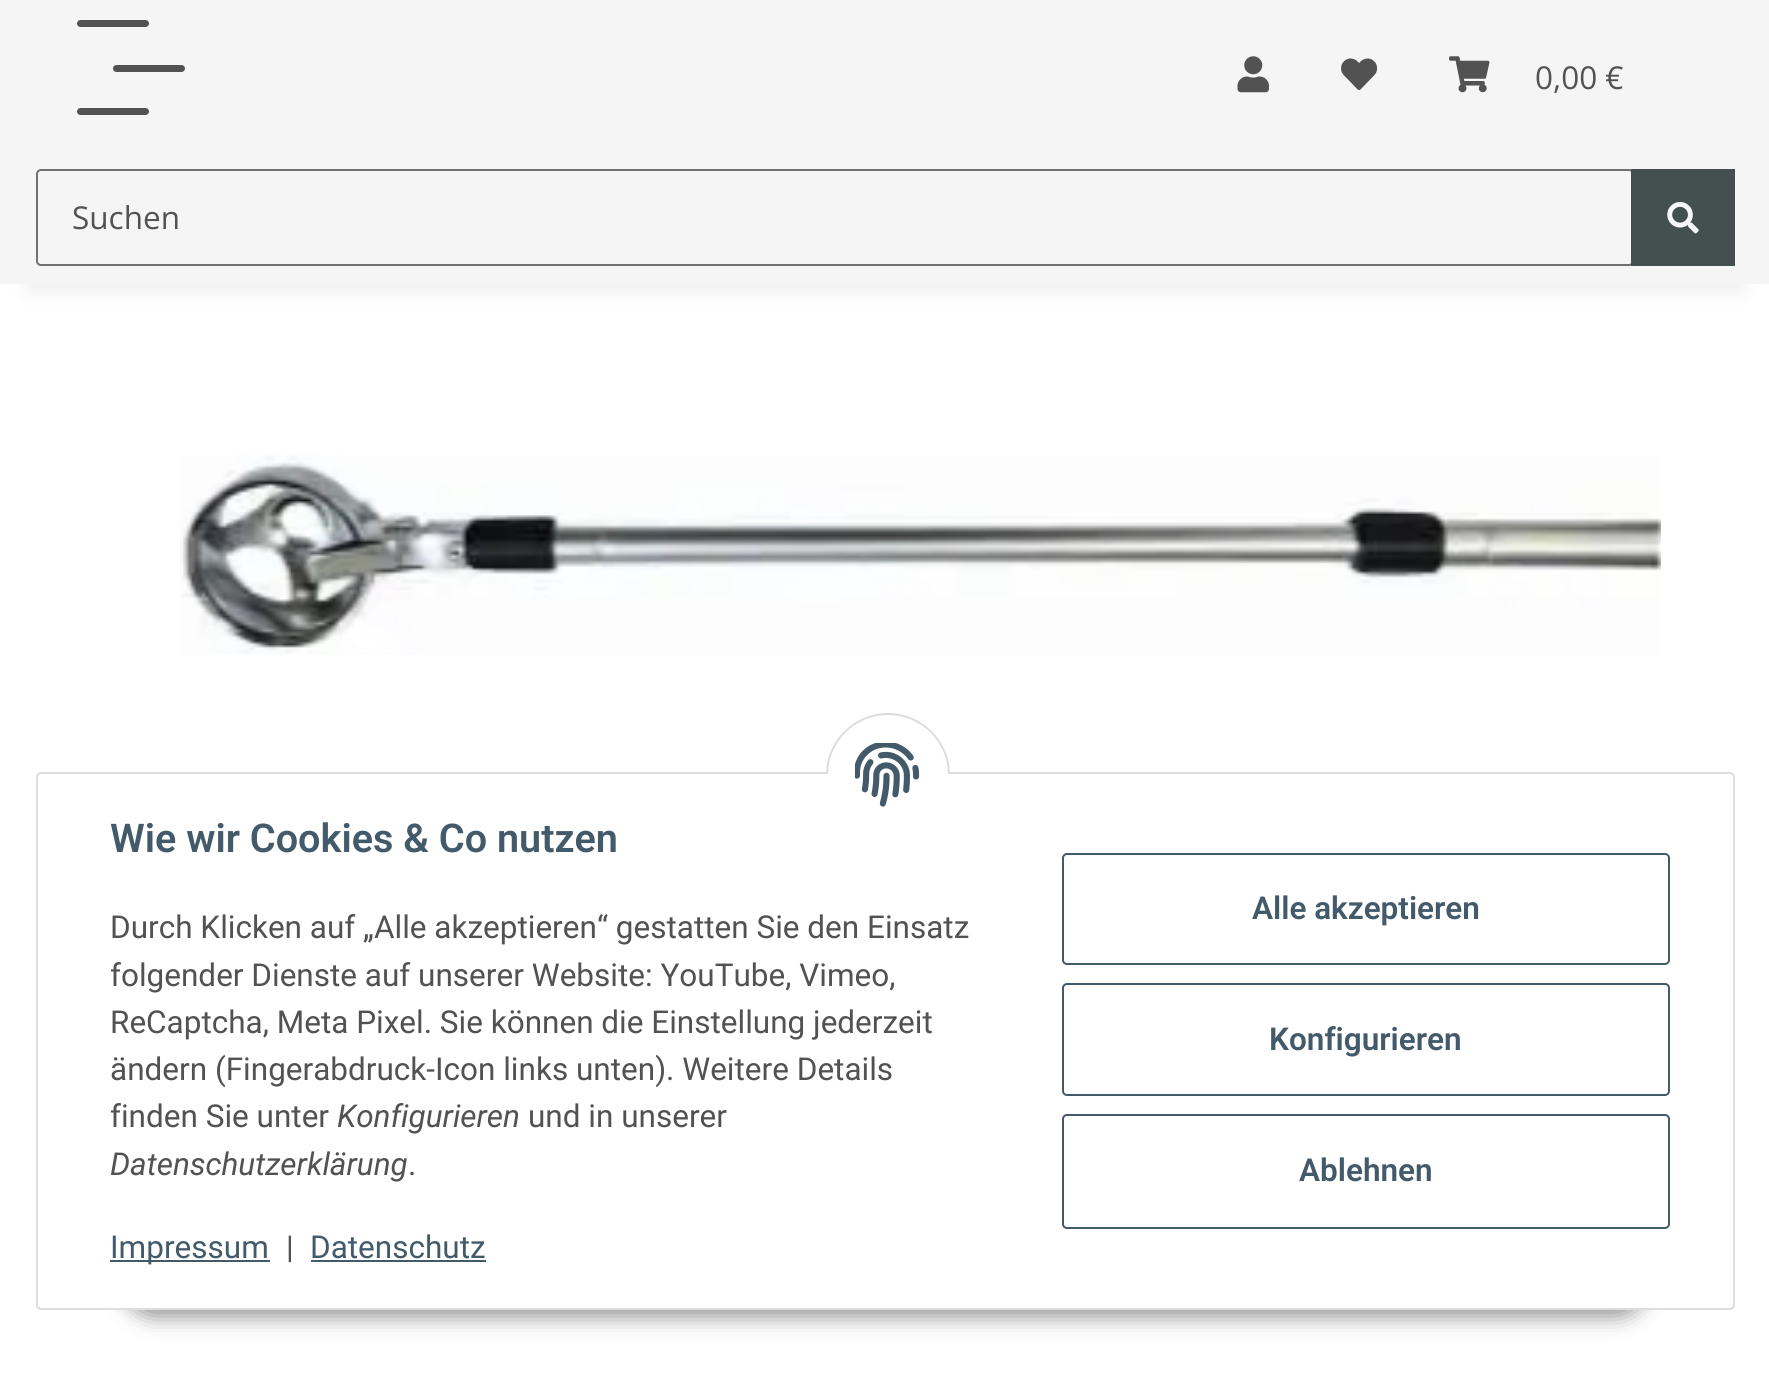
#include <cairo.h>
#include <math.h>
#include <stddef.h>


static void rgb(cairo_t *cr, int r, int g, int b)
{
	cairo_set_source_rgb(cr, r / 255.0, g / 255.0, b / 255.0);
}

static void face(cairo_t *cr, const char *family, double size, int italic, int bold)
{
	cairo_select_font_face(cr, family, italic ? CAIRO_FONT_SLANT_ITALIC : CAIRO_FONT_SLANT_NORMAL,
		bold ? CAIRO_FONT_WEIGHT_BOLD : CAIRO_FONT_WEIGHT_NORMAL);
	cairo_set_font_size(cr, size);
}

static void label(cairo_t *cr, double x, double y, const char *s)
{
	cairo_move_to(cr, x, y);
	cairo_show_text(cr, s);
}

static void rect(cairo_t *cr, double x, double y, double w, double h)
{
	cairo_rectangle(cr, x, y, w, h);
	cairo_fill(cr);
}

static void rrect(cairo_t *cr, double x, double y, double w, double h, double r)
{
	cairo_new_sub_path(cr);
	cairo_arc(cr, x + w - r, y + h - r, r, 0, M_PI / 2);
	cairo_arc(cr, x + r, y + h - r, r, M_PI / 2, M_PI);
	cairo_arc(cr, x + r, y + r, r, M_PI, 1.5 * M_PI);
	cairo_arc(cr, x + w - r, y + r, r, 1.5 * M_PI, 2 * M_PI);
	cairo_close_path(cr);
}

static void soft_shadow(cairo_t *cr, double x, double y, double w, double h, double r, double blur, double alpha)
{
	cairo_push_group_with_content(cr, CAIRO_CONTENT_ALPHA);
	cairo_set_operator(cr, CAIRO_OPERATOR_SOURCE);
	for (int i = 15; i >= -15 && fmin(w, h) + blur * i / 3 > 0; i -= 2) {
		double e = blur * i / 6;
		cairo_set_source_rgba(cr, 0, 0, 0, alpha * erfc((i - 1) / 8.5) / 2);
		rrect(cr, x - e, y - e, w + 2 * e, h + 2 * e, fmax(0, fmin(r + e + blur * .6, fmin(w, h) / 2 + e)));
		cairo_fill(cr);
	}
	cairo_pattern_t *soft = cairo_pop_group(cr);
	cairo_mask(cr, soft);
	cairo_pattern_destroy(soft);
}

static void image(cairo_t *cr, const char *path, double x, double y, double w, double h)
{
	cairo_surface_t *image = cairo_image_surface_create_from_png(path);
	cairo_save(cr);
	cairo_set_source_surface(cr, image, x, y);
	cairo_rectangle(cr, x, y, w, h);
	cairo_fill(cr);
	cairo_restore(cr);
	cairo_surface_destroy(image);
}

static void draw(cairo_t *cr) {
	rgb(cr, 255, 255, 255);
	cairo_paint(cr);
	rgb(cr, 0, 0, 0);
	soft_shadow(cr, 27, 63, 1717, 230, 0, 10, 0.06);
	rgb(cr, 245, 245, 245);
	rect(cr, 0, 0, 1769, 284);
	rgb(cr, 82, 82, 82);
	rrect(cr, 113, 65, 72, 7, 3.5);
	cairo_fill(cr);
	rrect(cr, 77, 20, 72, 7, 3.5);
	cairo_fill(cr);
	rrect(cr, 77, 108, 72, 7, 3.5);
	cairo_fill(cr);
	image(cr, "image0.png", 1237, 56, 32, 37);
	image(cr, "image1.png", 1341, 58, 37, 32);
	image(cr, "image2.png", 1449, 56, 41, 37);
	face(cr, "Open Sans", 31.5, 0, 0);
	label(cr, 1535, 89, "0,00 €");
	rrect(cr, 37, 170, 1596, 95, 4);
	rgb(cr, 112, 112, 112);
	cairo_stroke(cr);
	rgb(cr, 82, 82, 82);
	label(cr, 72, 229, "Suchen");
	rgb(cr, 68, 79, 80);
	rect(cr, 1631, 169, 104, 97);
	image(cr, "image3.png", 1667, 201, 32, 33);
	image(cr, "image4.png", 180, 455, 1481, 200);
	rgb(cr, 0, 0, 0);
	soft_shadow(cr, 124, 1244, 1523, 72, 36, 11, 0.45);
	rgb(cr, 255, 255, 255);
	rrect(cr, 37, 773, 1697, 536, 4);
	cairo_fill_preserve(cr);
	rgb(cr, 221, 221, 221);
	cairo_stroke(cr);
	rgb(cr, 255, 255, 255);
	cairo_arc(cr, 888, 775, 61, 0, 2 * M_PI);
	cairo_fill_preserve(cr);
	rgb(cr, 221, 221, 221);
	cairo_stroke(cr);
	rgb(cr, 255, 255, 255);
	rect(cr, 826, 774, 124, 63);
	image(cr, "image5.png", 855, 743, 65, 64);
	face(cr, "Roboto SemiBold", 39.6, 0, 0);
	rgb(cr, 67, 90, 107);
	label(cr, 110, 852, "Wie wir Cookies & Co nutzen");
	face(cr, "Roboto", 31.5, 0, 0);
	rgb(cr, 82, 82, 82);
	label(cr, 110, 938, "Durch Klicken auf „Alle akzeptieren“ gestatten Sie den Einsatz");
	label(cr, 110, 986, "folgender Dienste auf unserer Website: YouTube, Vimeo,");
	label(cr, 110, 1033, "ReCaptcha, Meta Pixel. Sie können die Einstellung jederzeit");
	label(cr, 110, 1080, "ändern (Fingerabdruck-Icon links unten). Weitere Details");
	label(cr, 110, 1127, "finden Sie unter");
	face(cr, "Roboto", 31.5, 1, 0);
	label(cr, 337, 1127, "Konfigurieren");
	face(cr, "Roboto", 31.5, 0, 0);
	label(cr, 528, 1127, "und in unserer");
	face(cr, "Roboto", 31.5, 1, 0);
	label(cr, 110, 1175, "Datenschutzerklärung");
	face(cr, "Roboto", 31.5, 0, 0);
	label(cr, 408, 1175, ".");
	rgb(cr, 67, 90, 107);
	rect(cr, 110, 1260, 160, 2);
	label(cr, 110, 1258, "Impressum");
	rgb(cr, 82, 82, 82);
	label(cr, 286, 1258, "|");
	rgb(cr, 67, 90, 107);
	label(cr, 310, 1258, "Datenschutz");
	rect(cr, 311, 1260, 175, 2);
	rrect(cr, 1063, 854, 606, 110, 4);
	cairo_stroke(cr);
	face(cr, "Roboto SemiBold", 31.5, 0, 0);
	label(cr, 1252, 919, "Alle akzeptieren");
	rrect(cr, 1063, 984, 606, 111, 4);
	cairo_stroke(cr);
	label(cr, 1269, 1050, "Konfigurieren");
	rrect(cr, 1063, 1115, 606, 113, 4);
	cairo_stroke(cr);
	label(cr, 1299, 1181, "Ablehnen");
}

int main(void) {
	cairo_surface_t *surface = cairo_image_surface_create(CAIRO_FORMAT_RGB24, 1769, 1381);
	cairo_t *cr = cairo_create(surface);
	cairo_font_options_t *options = cairo_font_options_create();
	cairo_font_options_set_hint_metrics(options, CAIRO_HINT_METRICS_OFF);
	cairo_font_options_set_hint_style(options, CAIRO_HINT_STYLE_NONE);
	cairo_set_font_options(cr, options);
	cairo_set_miter_limit(cr, 4);
	draw(cr);
	cairo_surface_write_to_png(surface, "render.png");
	cairo_font_options_destroy(options);
	cairo_destroy(cr);
	cairo_surface_destroy(surface);
	return 0;
}
